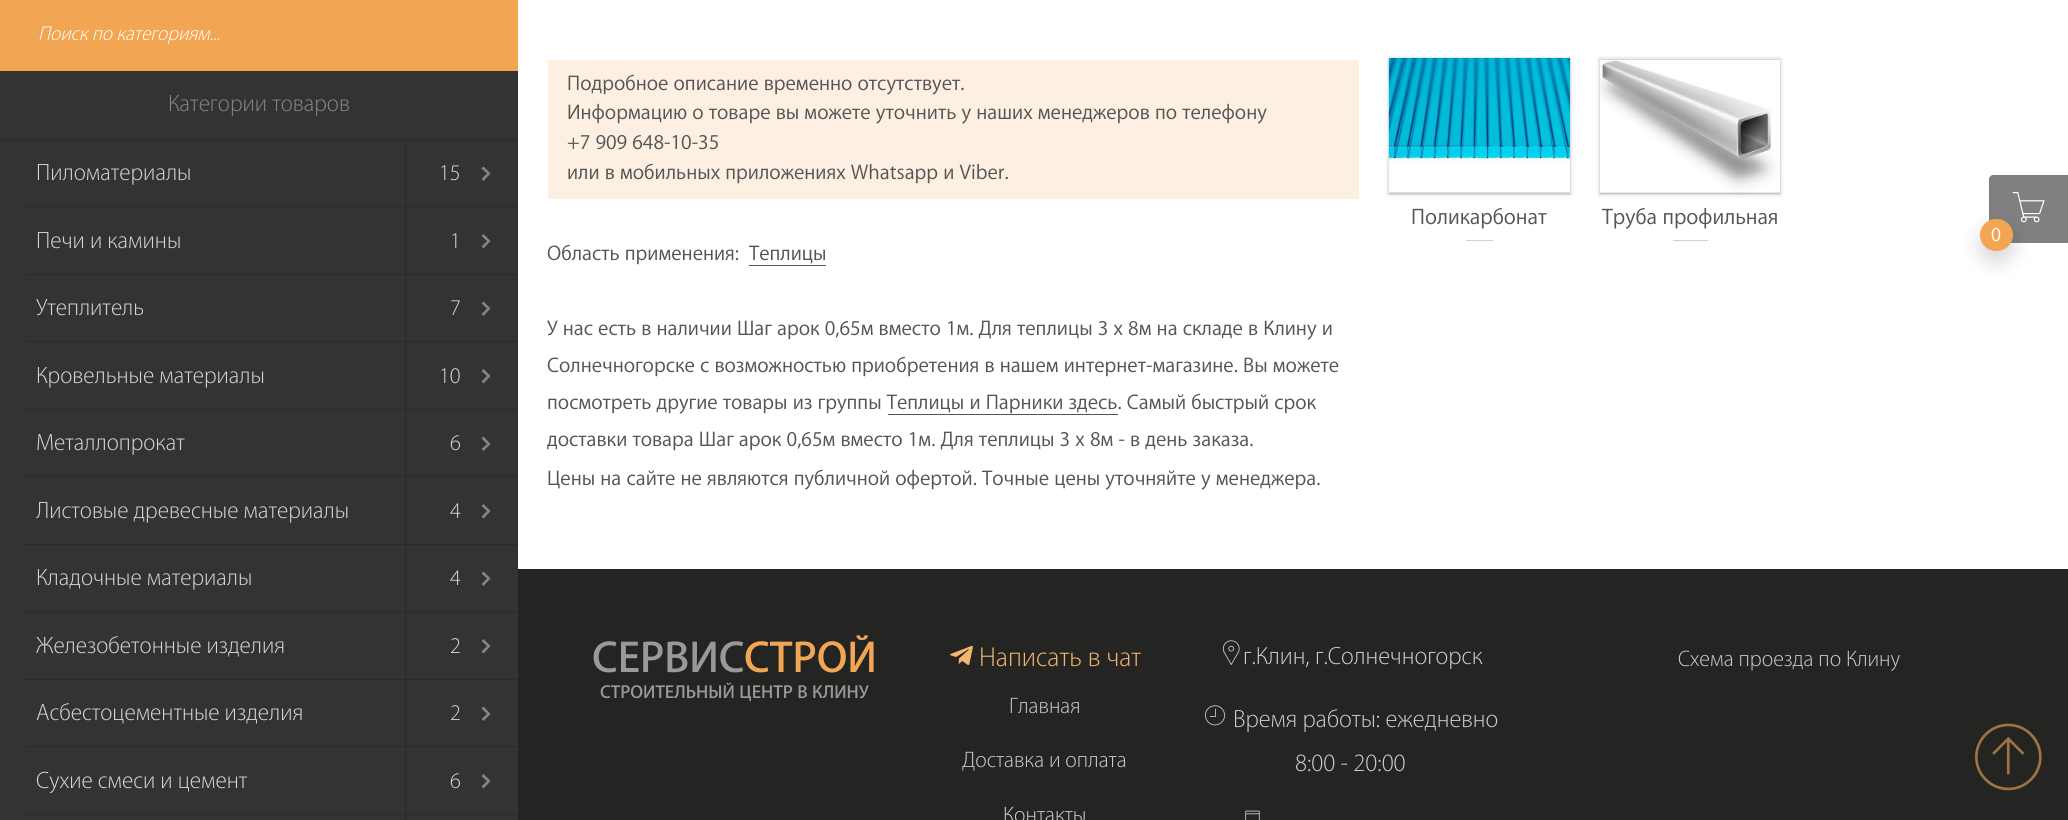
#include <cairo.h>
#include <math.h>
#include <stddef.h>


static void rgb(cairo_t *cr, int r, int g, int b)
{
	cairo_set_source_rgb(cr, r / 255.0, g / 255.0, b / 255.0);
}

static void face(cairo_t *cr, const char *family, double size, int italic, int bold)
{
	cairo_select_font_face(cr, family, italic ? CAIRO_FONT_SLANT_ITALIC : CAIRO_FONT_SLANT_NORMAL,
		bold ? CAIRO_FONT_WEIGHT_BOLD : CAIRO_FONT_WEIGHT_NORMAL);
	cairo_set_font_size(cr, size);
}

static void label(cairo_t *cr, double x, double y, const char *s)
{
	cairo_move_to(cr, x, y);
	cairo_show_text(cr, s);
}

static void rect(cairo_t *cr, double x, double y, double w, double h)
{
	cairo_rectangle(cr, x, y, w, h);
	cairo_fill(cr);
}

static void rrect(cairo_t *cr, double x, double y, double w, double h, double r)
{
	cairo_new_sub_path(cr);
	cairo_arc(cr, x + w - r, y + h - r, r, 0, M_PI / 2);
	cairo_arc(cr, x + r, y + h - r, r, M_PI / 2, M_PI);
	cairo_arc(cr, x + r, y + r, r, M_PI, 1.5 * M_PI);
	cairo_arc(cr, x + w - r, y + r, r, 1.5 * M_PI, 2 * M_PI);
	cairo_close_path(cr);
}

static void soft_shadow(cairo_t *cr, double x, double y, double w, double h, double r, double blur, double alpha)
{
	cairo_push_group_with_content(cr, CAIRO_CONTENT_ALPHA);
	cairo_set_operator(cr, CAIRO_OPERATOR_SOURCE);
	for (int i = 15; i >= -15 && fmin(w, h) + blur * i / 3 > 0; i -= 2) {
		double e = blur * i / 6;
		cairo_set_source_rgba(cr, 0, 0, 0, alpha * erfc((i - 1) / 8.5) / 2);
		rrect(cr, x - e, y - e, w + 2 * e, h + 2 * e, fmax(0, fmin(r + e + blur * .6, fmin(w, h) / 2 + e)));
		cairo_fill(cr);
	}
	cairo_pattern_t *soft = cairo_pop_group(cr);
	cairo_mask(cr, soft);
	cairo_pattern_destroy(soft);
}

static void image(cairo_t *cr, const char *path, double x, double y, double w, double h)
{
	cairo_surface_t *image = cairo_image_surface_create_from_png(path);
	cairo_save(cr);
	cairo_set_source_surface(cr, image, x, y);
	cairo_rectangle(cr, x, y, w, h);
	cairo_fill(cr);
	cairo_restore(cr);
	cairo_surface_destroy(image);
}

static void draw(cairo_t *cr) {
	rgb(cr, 255, 255, 255);
	cairo_paint(cr);
	rgb(cr, 51, 51, 51);
	rect(cr, 0, 71, 518, 749);
	rgb(cr, 43, 43, 43);
	rect(cr, 405, 140, 1, 680);
	rgb(cr, 242, 166, 84);
	rect(cr, 0, 0, 518, 71);
	face(cr, "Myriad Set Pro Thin", 20, 1, 0);
	rgb(cr, 255, 255, 255);
	label(cr, 38, 40, "Поиск по категориям...");
	rgb(cr, 43, 43, 43);
	rect(cr, 0, 139, 518, 1);
	face(cr, "Myriad Set Pro Thin", 23.75, 0, 0);
	rgb(cr, 133, 133, 133);
	label(cr, 168, 111, "Категории товаров");
	rgb(cr, 214, 214, 214);
	label(cr, 36, 180, "Пиломатериалы");
	face(cr, "Myriad Set Pro Thin", 22.5, 0, 0);
	label(cr, 439, 180, "15");
	rgb(cr, 133, 133, 133);
	cairo_new_path(cr);
	cairo_move_to(cr, 490.5, 173.5);
	cairo_line_to(cr, 483.5, 181);
	cairo_line_to(cr, 481.5, 179);
	cairo_line_to(cr, 487, 173.5);
	cairo_close_path(cr);
	cairo_fill(cr);
	cairo_set_source_rgba(cr, 1, 1, 1, 0.4);
	cairo_new_path(cr);
	cairo_move_to(cr, 483.5, 166.5);
	cairo_line_to(cr, 490.5, 173.5);
	cairo_line_to(cr, 487, 173.5);
	cairo_line_to(cr, 481.5, 168.5);
	cairo_close_path(cr);
	cairo_fill(cr);
	rgb(cr, 43, 43, 43);
	rect(cr, 25, 206, 493, 1);
	rgb(cr, 37, 37, 37);
	rect(cr, 405, 206, 1, 1);
	face(cr, "Myriad Set Pro Thin", 23.75, 0, 0);
	rgb(cr, 214, 214, 214);
	label(cr, 36, 248, "Печи и камины");
	face(cr, "Myriad Set Pro Thin", 22.5, 0, 0);
	label(cr, 450, 248, "1");
	rgb(cr, 133, 133, 133);
	cairo_new_path(cr);
	cairo_move_to(cr, 490.5, 241);
	cairo_line_to(cr, 483.5, 248.5);
	cairo_line_to(cr, 481.5, 246.5);
	cairo_line_to(cr, 487, 241);
	cairo_close_path(cr);
	cairo_move_to(cr, 483.5, 234);
	cairo_line_to(cr, 490.5, 241);
	cairo_line_to(cr, 487, 241);
	cairo_line_to(cr, 481.5, 236);
	cairo_close_path(cr);
	cairo_fill(cr);
	rgb(cr, 43, 43, 43);
	rect(cr, 25, 274, 493, 1);
	rgb(cr, 37, 37, 37);
	rect(cr, 405, 274, 1, 1);
	face(cr, "Myriad Set Pro Thin", 23.75, 0, 0);
	rgb(cr, 214, 214, 214);
	label(cr, 36, 315, "Утеплитель");
	face(cr, "Myriad Set Pro Thin", 22.5, 0, 0);
	label(cr, 450, 315, "7");
	rgb(cr, 133, 133, 133);
	cairo_new_path(cr);
	cairo_move_to(cr, 490.5, 308.5);
	cairo_line_to(cr, 483.5, 316);
	cairo_line_to(cr, 481.5, 314);
	cairo_line_to(cr, 487, 308.5);
	cairo_close_path(cr);
	cairo_fill(cr);
	cairo_set_source_rgba(cr, 1, 1, 1, 0.4);
	cairo_new_path(cr);
	cairo_move_to(cr, 483.5, 301.5);
	cairo_line_to(cr, 490.5, 308.5);
	cairo_line_to(cr, 487, 308.5);
	cairo_line_to(cr, 481.5, 303.5);
	cairo_close_path(cr);
	cairo_fill(cr);
	rgb(cr, 43, 43, 43);
	rect(cr, 25, 341, 493, 1);
	rgb(cr, 37, 37, 37);
	rect(cr, 405, 341, 1, 1);
	face(cr, "Myriad Set Pro Thin", 23.75, 0, 0);
	rgb(cr, 214, 214, 214);
	label(cr, 36, 383, "Кровельные материалы");
	face(cr, "Myriad Set Pro Thin", 22.5, 0, 0);
	label(cr, 439, 383, "10");
	rgb(cr, 133, 133, 133);
	cairo_new_path(cr);
	cairo_move_to(cr, 490.5, 376);
	cairo_line_to(cr, 483.5, 383.5);
	cairo_line_to(cr, 481.5, 381.5);
	cairo_line_to(cr, 487, 376);
	cairo_close_path(cr);
	cairo_move_to(cr, 483.5, 369);
	cairo_line_to(cr, 490.5, 376);
	cairo_line_to(cr, 487, 376);
	cairo_line_to(cr, 481.5, 371);
	cairo_close_path(cr);
	cairo_fill(cr);
	rgb(cr, 43, 43, 43);
	rect(cr, 25, 409, 493, 1);
	rgb(cr, 37, 37, 37);
	rect(cr, 405, 409, 1, 1);
	face(cr, "Myriad Set Pro Thin", 23.75, 0, 0);
	rgb(cr, 214, 214, 214);
	label(cr, 36, 450, "Металлопрокат");
	face(cr, "Myriad Set Pro Thin", 22.5, 0, 0);
	label(cr, 450, 450, "6");
	rgb(cr, 133, 133, 133);
	cairo_new_path(cr);
	cairo_move_to(cr, 490.5, 444);
	cairo_line_to(cr, 483.5, 451);
	cairo_line_to(cr, 481.5, 449);
	cairo_line_to(cr, 487, 444);
	cairo_close_path(cr);
	cairo_move_to(cr, 483.5, 436.5);
	cairo_line_to(cr, 490.5, 444);
	cairo_line_to(cr, 487, 444);
	cairo_line_to(cr, 481.5, 438.5);
	cairo_close_path(cr);
	cairo_fill(cr);
	rgb(cr, 43, 43, 43);
	rect(cr, 25, 476, 493, 1);
	rgb(cr, 37, 37, 37);
	rect(cr, 405, 476, 1, 1);
	face(cr, "Myriad Set Pro Thin", 23.75, 0, 0);
	rgb(cr, 214, 214, 214);
	label(cr, 36, 518, "Листовые древесные материалы");
	face(cr, "Myriad Set Pro Thin", 22.5, 0, 0);
	label(cr, 450, 518, "4");
	rgb(cr, 133, 133, 133);
	cairo_new_path(cr);
	cairo_move_to(cr, 490.5, 511);
	cairo_line_to(cr, 483.5, 518.5);
	cairo_line_to(cr, 481.5, 516.5);
	cairo_line_to(cr, 487, 511);
	cairo_close_path(cr);
	cairo_move_to(cr, 483.5, 504);
	cairo_line_to(cr, 490.5, 511);
	cairo_line_to(cr, 487, 511);
	cairo_line_to(cr, 481.5, 506);
	cairo_close_path(cr);
	cairo_fill(cr);
	rgb(cr, 43, 43, 43);
	rect(cr, 25, 544, 493, 1);
	rgb(cr, 37, 37, 37);
	rect(cr, 405, 544, 1, 1);
	face(cr, "Myriad Set Pro Thin", 23.75, 0, 0);
	rgb(cr, 214, 214, 214);
	label(cr, 36, 585, "Кладочные материалы");
	face(cr, "Myriad Set Pro Thin", 22.5, 0, 0);
	label(cr, 450, 585, "4");
	rgb(cr, 133, 133, 133);
	cairo_new_path(cr);
	cairo_move_to(cr, 490.5, 578.5);
	cairo_line_to(cr, 483.5, 586);
	cairo_line_to(cr, 481.5, 584);
	cairo_line_to(cr, 487, 578.5);
	cairo_close_path(cr);
	cairo_fill(cr);
	cairo_set_source_rgba(cr, 1, 1, 1, 0.4);
	cairo_new_path(cr);
	cairo_move_to(cr, 483.5, 571.5);
	cairo_line_to(cr, 490.5, 578.5);
	cairo_line_to(cr, 487, 578.5);
	cairo_line_to(cr, 481.5, 573.5);
	cairo_close_path(cr);
	cairo_fill(cr);
	rgb(cr, 43, 43, 43);
	rect(cr, 25, 611, 493, 1);
	rgb(cr, 37, 37, 37);
	rect(cr, 405, 611, 1, 1);
	face(cr, "Myriad Set Pro Thin", 23.75, 0, 0);
	rgb(cr, 214, 214, 214);
	label(cr, 36, 653, "Железобетонные изделия");
	face(cr, "Myriad Set Pro Thin", 22.5, 0, 0);
	label(cr, 450, 653, "2");
	rgb(cr, 133, 133, 133);
	cairo_new_path(cr);
	cairo_move_to(cr, 490.5, 646);
	cairo_line_to(cr, 483.5, 653.5);
	cairo_line_to(cr, 481.5, 651.5);
	cairo_line_to(cr, 487, 646);
	cairo_close_path(cr);
	cairo_move_to(cr, 483.5, 639);
	cairo_line_to(cr, 490.5, 646);
	cairo_line_to(cr, 487, 646);
	cairo_line_to(cr, 481.5, 641);
	cairo_close_path(cr);
	cairo_fill(cr);
	rgb(cr, 43, 43, 43);
	rect(cr, 25, 679, 493, 1);
	rgb(cr, 37, 37, 37);
	rect(cr, 405, 679, 1, 1);
	face(cr, "Myriad Set Pro Thin", 23.75, 0, 0);
	rgb(cr, 214, 214, 214);
	label(cr, 36, 720, "Асбестоцементные изделия");
	face(cr, "Myriad Set Pro Thin", 22.5, 0, 0);
	label(cr, 450, 720, "2");
	rgb(cr, 133, 133, 133);
	cairo_new_path(cr);
	cairo_move_to(cr, 490.5, 714);
	cairo_line_to(cr, 483.5, 721);
	cairo_line_to(cr, 481.5, 719);
	cairo_line_to(cr, 487, 714);
	cairo_close_path(cr);
	cairo_move_to(cr, 483.5, 706.5);
	cairo_line_to(cr, 490.5, 714);
	cairo_line_to(cr, 487, 714);
	cairo_line_to(cr, 481.5, 708.5);
	cairo_close_path(cr);
	cairo_fill(cr);
	rgb(cr, 43, 43, 43);
	rect(cr, 25, 746, 493, 1);
	rgb(cr, 37, 37, 37);
	rect(cr, 405, 746, 1, 1);
	face(cr, "Myriad Set Pro Thin", 23.75, 0, 0);
	rgb(cr, 214, 214, 214);
	label(cr, 36, 788, "Cухие смеси и цемент");
	face(cr, "Myriad Set Pro Thin", 22.5, 0, 0);
	label(cr, 450, 788, "6");
	rgb(cr, 133, 133, 133);
	cairo_new_path(cr);
	cairo_move_to(cr, 490.5, 781);
	cairo_line_to(cr, 483.5, 788.5);
	cairo_line_to(cr, 481.5, 786.5);
	cairo_line_to(cr, 487, 781);
	cairo_close_path(cr);
	cairo_move_to(cr, 483.5, 774);
	cairo_line_to(cr, 490.5, 781);
	cairo_line_to(cr, 487, 781);
	cairo_line_to(cr, 481.5, 776);
	cairo_close_path(cr);
	cairo_fill(cr);
	rgb(cr, 43, 43, 43);
	rect(cr, 25, 814, 493, 1);
	rgb(cr, 37, 37, 37);
	rect(cr, 405, 814, 1, 1);
	rgb(cr, 253, 240, 226);
	rect(cr, 548, 60, 811, 139);
	face(cr, "Myriad Set Pro", 21.25, 0, 0);
	rgb(cr, 85, 85, 85);
	label(cr, 567, 90, "Подробное описание временно отсутствует.");
	label(cr, 567, 119, "Информацию о товаре вы можете уточнить у наших менеджеров по телефону");
	label(cr, 567, 149, "+7 909 648-10-35");
	label(cr, 567, 179, "или в мобильных приложениях Whatsapp и Viber.");
	label(cr, 547, 260, "Область применения:");
	label(cr, 749, 260, "Теплицы");
	rect(cr, 749, 265, 77, 1);
	label(cr, 547, 335, "У нас есть в наличии Шаг арок 0,65м вместо 1м. Для теплицы 3 x 8м на складе в Клину и");
	label(cr, 547, 372, "Солнечногорске с возможностью приобретения в нашем интернет-магазине. Вы можете");
	label(cr, 547, 409, "посмотреть другие товары из группы Теплицы и Парники здесь. Самый быстрый срок");
	rect(cr, 888, 414, 230, 1);
	label(cr, 547, 446, "доставки товара Шаг арок 0,65м вместо 1м. Для теплицы 3 x 8м - в день заказа.");
	label(cr, 547, 485, "Цены на сайте не являются публичной офертой. Точные цены уточняйте у менеджера.");
	rgb(cr, 60, 64, 67);
	soft_shadow(cr, 1388, 58, 183, 137, 0, 2, 0.15);
	soft_shadow(cr, 1389, 59, 181, 135, 0, 1, 0.3);
	image(cr, "image0.png", 1388, 57, 182, 136);
	face(cr, "Myriad Set Pro", 22.5, 0, 0);
	rgb(cr, 85, 85, 85);
	label(cr, 1411, 224, "Поликарбонат");
	rgb(cr, 208, 208, 208);
	rect(cr, 1466, 240, 27, 1);
	cairo_save(cr);
	cairo_set_fill_rule(cr, CAIRO_FILL_RULE_EVEN_ODD);
	cairo_new_path(cr);
	cairo_move_to(cr, 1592, 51);
	cairo_line_to(cr, 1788, 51);
	cairo_line_to(cr, 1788, 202);
	cairo_line_to(cr, 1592, 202);
	cairo_close_path(cr);
	cairo_move_to(cr, 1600, 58);
	cairo_line_to(cr, 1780, 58);
	cairo_line_to(cr, 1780, 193);
	cairo_line_to(cr, 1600, 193);
	cairo_close_path(cr);
	cairo_clip(cr);
	rgb(cr, 60, 64, 67);
	soft_shadow(cr, 1599, 58, 182, 137, 0, 2, 0.15);
	cairo_restore(cr);
	rgb(cr, 60, 64, 67);
	soft_shadow(cr, 1600, 59, 180, 135, 0, 1, 0.3);
	image(cr, "image1.png", 1600, 60, 180, 133);
	rgb(cr, 85, 85, 85);
	label(cr, 1602, 224, "Труба профильная");
	rgb(cr, 208, 208, 208);
	rect(cr, 1673, 240, 35, 1);
	rgb(cr, 36, 36, 35);
	rect(cr, 518, 569, 1550, 251);
	face(cr, "Myriad Set Pro SemiBold", 45, 0, 0);
	rgb(cr, 153, 153, 153);
	label(cr, 592, 672, "СЕРВИС");
	rgb(cr, 242, 166, 84);
	label(cr, 744, 672, "СТРОЙ");
	face(cr, "Myriad Set Pro SemiBold", 18.75, 0, 0);
	rgb(cr, 153, 153, 153);
	label(cr, 600, 698, "СТРОИТЕЛЬНЫЙ ЦЕНТР В КЛИНУ");
	image(cr, "image2.png", 950, 645, 23, 20);
	face(cr, "Myriad Set Pro Thin", 27.5, 0, 0);
	rgb(cr, 244, 181, 112);
	label(cr, 979, 666, "Написать в чат");
	face(cr, "Myriad Set Pro Thin", 22.5, 0, 0);
	rgb(cr, 204, 204, 204);
	label(cr, 1009, 713, "Главная");
	label(cr, 962, 767, "Доставка и оплата");
	label(cr, 1003, 822, "Контакты");
	image(cr, "image3.png", 1222, 640, 18, 26);
	face(cr, "Myriad Set Pro Thin", 25, 0, 0);
	label(cr, 1243, 664, "г.Клин, г.Солнечногорск");
	image(cr, "image4.png", 1205, 705, 20, 21);
	label(cr, 1233, 727, "Время работы: ежедневно");
	label(cr, 1295, 771, "8:00 - 20:00");
	image(cr, "image5.png", 1245, 810, 15, 10);
	face(cr, "Myriad Set Pro Thin", 22.5, 0, 0);
	label(cr, 1678, 666, "Схема проезда по Клину");
	image(cr, "image6.png", 1975, 723, 67, 68);
	rgb(cr, 128, 128, 128);
	cairo_new_path(cr);
	cairo_move_to(cr, 1993, 175);
	cairo_line_to(cr, 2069, 175);
	cairo_line_to(cr, 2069, 243);
	cairo_line_to(cr, 1993, 243);
	cairo_curve_to(cr, 1991, 243, 1989, 241, 1989, 239);
	cairo_line_to(cr, 1989, 179);
	cairo_curve_to(cr, 1989, 177, 1991, 175, 1993, 175);
	cairo_close_path(cr);
	cairo_fill(cr);
	image(cr, "image7.png", 2012, 192, 33, 31);
	rgb(cr, 0, 0, 0);
	soft_shadow(cr, 1980, 229, 33, 32, 16, 10, 0.15);
	rgb(cr, 242, 166, 84);
	rrect(cr, 1980, 219, 33, 32, 16);
	cairo_fill(cr);
	face(cr, "Myriad Set Pro", 20, 0, 0);
	rgb(cr, 255, 255, 255);
	label(cr, 1991, 241, "0");
}

int main(void) {
	cairo_surface_t *surface = cairo_image_surface_create(CAIRO_FORMAT_RGB24, 2068, 820);
	cairo_t *cr = cairo_create(surface);
	cairo_font_options_t *options = cairo_font_options_create();
	cairo_font_options_set_hint_metrics(options, CAIRO_HINT_METRICS_OFF);
	cairo_font_options_set_hint_style(options, CAIRO_HINT_STYLE_NONE);
	cairo_set_font_options(cr, options);
	cairo_set_miter_limit(cr, 4);
	draw(cr);
	cairo_surface_write_to_png(surface, "render.png");
	cairo_font_options_destroy(options);
	cairo_destroy(cr);
	cairo_surface_destroy(surface);
	return 0;
}
